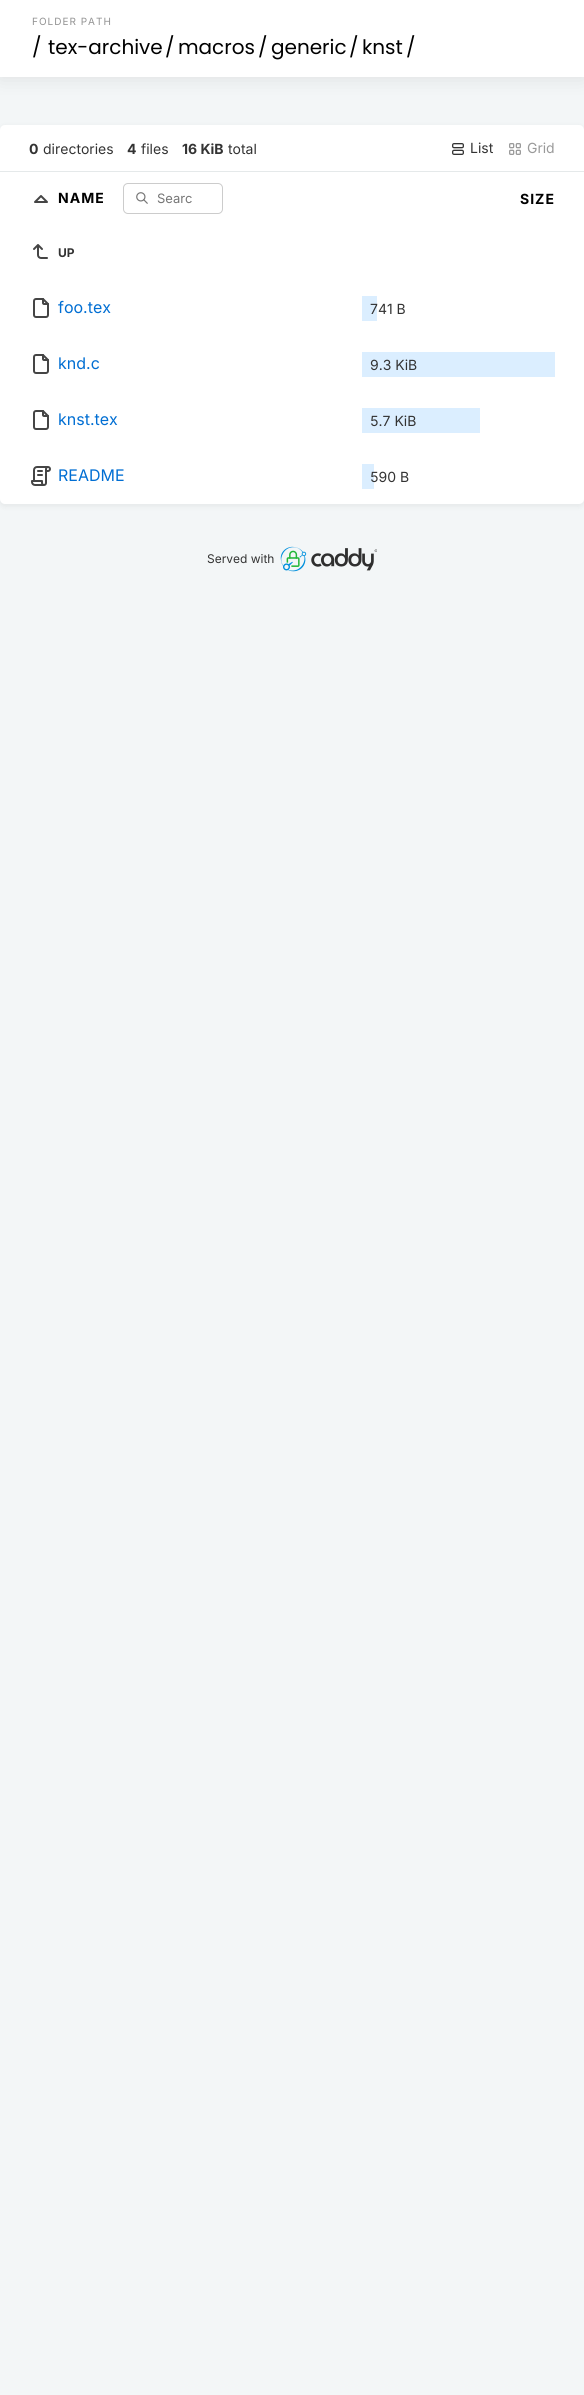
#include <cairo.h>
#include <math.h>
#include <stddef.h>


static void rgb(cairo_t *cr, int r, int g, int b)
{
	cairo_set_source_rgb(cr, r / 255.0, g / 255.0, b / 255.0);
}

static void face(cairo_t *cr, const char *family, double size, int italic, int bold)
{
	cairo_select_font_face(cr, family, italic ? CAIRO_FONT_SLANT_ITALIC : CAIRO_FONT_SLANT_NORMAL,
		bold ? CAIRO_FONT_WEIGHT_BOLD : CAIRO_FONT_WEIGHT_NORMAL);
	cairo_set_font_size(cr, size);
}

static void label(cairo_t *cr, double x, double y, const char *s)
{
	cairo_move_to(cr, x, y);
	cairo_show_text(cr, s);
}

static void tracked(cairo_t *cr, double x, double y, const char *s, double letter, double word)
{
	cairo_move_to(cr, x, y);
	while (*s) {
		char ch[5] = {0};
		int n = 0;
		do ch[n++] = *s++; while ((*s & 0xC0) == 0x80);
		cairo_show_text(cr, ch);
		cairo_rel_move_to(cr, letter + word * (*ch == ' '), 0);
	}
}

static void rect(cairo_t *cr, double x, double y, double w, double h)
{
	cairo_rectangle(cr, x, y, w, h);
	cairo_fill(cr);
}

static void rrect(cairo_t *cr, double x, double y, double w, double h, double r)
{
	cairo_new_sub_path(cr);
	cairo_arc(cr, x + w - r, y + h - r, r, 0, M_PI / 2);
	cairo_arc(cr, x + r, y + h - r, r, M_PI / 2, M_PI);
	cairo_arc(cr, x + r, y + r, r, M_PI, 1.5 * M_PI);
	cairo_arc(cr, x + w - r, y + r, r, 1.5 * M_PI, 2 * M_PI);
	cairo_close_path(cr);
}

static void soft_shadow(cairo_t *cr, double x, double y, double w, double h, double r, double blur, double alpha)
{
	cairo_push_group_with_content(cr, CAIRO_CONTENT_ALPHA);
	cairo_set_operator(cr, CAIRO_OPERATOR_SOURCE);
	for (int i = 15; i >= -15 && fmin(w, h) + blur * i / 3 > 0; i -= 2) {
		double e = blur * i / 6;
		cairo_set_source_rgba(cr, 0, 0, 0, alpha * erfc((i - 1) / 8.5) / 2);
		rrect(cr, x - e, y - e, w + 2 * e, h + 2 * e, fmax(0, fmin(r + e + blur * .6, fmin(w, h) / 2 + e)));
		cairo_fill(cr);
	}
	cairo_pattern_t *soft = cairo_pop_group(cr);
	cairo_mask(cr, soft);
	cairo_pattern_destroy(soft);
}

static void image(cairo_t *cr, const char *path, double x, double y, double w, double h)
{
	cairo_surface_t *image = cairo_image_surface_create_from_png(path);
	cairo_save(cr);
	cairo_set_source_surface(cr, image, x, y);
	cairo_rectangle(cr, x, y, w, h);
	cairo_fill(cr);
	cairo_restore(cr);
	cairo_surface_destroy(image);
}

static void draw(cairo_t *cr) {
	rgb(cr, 243, 246, 247);
	cairo_paint(cr);
	rgb(cr, 0, 0, 0);
	soft_shadow(cr, 0, 0, 584, 77, 0, 10, 0.1);
	rgb(cr, 255, 255, 255);
	rect(cr, 0, 0, 584, 77);
	face(cr, "Inter", 10, 0, 0);
	rgb(cr, 147, 147, 147);
	tracked(cr, 32, 25, "FOLDER PATH", 1, 0);
	face(cr, "Poppins", 20, 0, 0);
	rgb(cr, 0, 0, 0);
	label(cr, 32, 54, "/");
	label(cr, 48, 54, "tex-archive");
	label(cr, 165, 54, "/");
	label(cr, 178, 54, "macros");
	label(cr, 258, 54, "/");
	label(cr, 271, 54, "generic");
	label(cr, 349, 54, "/");
	label(cr, 362, 54, "knst");
	label(cr, 406, 54, "/");
	rgb(cr, 0, 0, 0);
	soft_shadow(cr, -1, 126, 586, 381, 6, 2.5, 0.05);
	rgb(cr, 255, 255, 255);
	rrect(cr, 0, 125, 584, 379, 5);
	cairo_fill(cr);
	rgb(cr, 229, 233, 234);
	rect(cr, 0, 171, 584, 1);
	face(cr, "Inter", 14, 0, 1);
	rgb(cr, 51, 51, 51);
	label(cr, 29, 154, "0");
	face(cr, "Inter", 14, 0, 0);
	label(cr, 43, 154, "directories");
	face(cr, "Inter", 14, 0, 1);
	label(cr, 127, 154, "4");
	face(cr, "Inter", 14, 0, 0);
	label(cr, 141, 154, "files");
	face(cr, "Inter", 14, 0, 1);
	label(cr, 182, 154, "16 KiB");
	face(cr, "Inter", 14, 0, 0);
	label(cr, 228, 154, "total");
	image(cr, "image0.png", 452, 143, 12, 12);
	label(cr, 470, 153, "List");
	image(cr, "image1.png", 509, 143, 12, 12);
	rgb(cr, 154, 154, 154);
	label(cr, 527, 153, "Grid");
	cairo_new_path(cr);
	cairo_move_to(cr, 47, 202);
	cairo_line_to(cr, 41, 196);
	cairo_line_to(cr, 35, 202);
	cairo_line_to(cr, 47, 202);
	rgb(cr, 69, 69, 69);
	cairo_set_line_cap(cr, CAIRO_LINE_CAP_ROUND);
	cairo_set_line_join(cr, CAIRO_LINE_JOIN_ROUND);
	cairo_stroke(cr);
	face(cr, "Inter", 14, 0, 1);
	rgb(cr, 0, 0, 0);
	tracked(cr, 58, 203, "NAME", 1, 0);
	image(cr, "image2.png", 136, 192, 12, 12);
	rrect(cr, 123.5, 183.5, 99, 30, 4.5);
	rgb(cr, 204, 204, 204);
	cairo_set_line_width(cr, 1);
	cairo_set_line_cap(cr, CAIRO_LINE_CAP_BUTT);
	cairo_set_line_join(cr, CAIRO_LINE_JOIN_MITER);
	cairo_stroke(cr);
	face(cr, "Inter", 13, 0, 0);
	rgb(cr, 117, 117, 117);
	label(cr, 157, 203, "Searc");
	face(cr, "Inter", 14, 0, 1);
	rgb(cr, 0, 0, 0);
	tracked(cr, 520, 204, "SIZE", 1, 0);
	image(cr, "image3.png", 33, 244, 15, 15);
	face(cr, "Inter", 12, 0, 1);
	rgb(cr, 51, 51, 51);
	label(cr, 58, 257, "UP");
	image(cr, "image4.png", 33, 298, 16, 20);
	face(cr, "Inter", 16, 0, 0);
	rgb(cr, 0, 110, 211);
	label(cr, 58, 313, "foo.tex");
	rgb(cr, 219, 238, 255);
	rect(cr, 362, 296, 15, 25);
	face(cr, "Inter", 14, 0, 0);
	rgb(cr, 51, 51, 51);
	label(cr, 370, 314, "741 B");
	image(cr, "image4.png", 33, 354, 16, 20);
	face(cr, "Inter", 16, 0, 0);
	rgb(cr, 0, 110, 211);
	label(cr, 58, 369, "knd.c");
	rgb(cr, 219, 238, 255);
	rect(cr, 362, 352, 193, 25);
	face(cr, "Inter", 14, 0, 0);
	rgb(cr, 51, 51, 51);
	label(cr, 370, 370, "9.3 KiB");
	image(cr, "image4.png", 33, 410, 16, 20);
	face(cr, "Inter", 16, 0, 0);
	rgb(cr, 0, 110, 211);
	label(cr, 58, 425, "knst.tex");
	rgb(cr, 219, 238, 255);
	rect(cr, 362, 408, 118, 25);
	face(cr, "Inter", 14, 0, 0);
	rgb(cr, 51, 51, 51);
	label(cr, 370, 426, "5.7 KiB");
	image(cr, "image5.png", 31, 466, 20, 20);
	face(cr, "Inter", 16, 0, 0);
	rgb(cr, 0, 110, 211);
	label(cr, 58, 481, "README");
	rgb(cr, 219, 238, 255);
	rect(cr, 362, 464, 12, 25);
	face(cr, "Inter", 14, 0, 0);
	rgb(cr, 51, 51, 51);
	label(cr, 370, 482, "590 B");
	face(cr, "Inter", 12, 0, 0);
	label(cr, 207, 563, "Served with");
	image(cr, "image6.png", 280, 546, 97, 26);
}

int main(void) {
	cairo_surface_t *surface = cairo_image_surface_create(CAIRO_FORMAT_RGB24, 584, 2395);
	cairo_t *cr = cairo_create(surface);
	cairo_font_options_t *options = cairo_font_options_create();
	cairo_font_options_set_hint_metrics(options, CAIRO_HINT_METRICS_OFF);
	cairo_font_options_set_hint_style(options, CAIRO_HINT_STYLE_NONE);
	cairo_set_font_options(cr, options);
	cairo_set_miter_limit(cr, 4);
	draw(cr);
	cairo_surface_write_to_png(surface, "render.png");
	cairo_font_options_destroy(options);
	cairo_destroy(cr);
	cairo_surface_destroy(surface);
	return 0;
}
